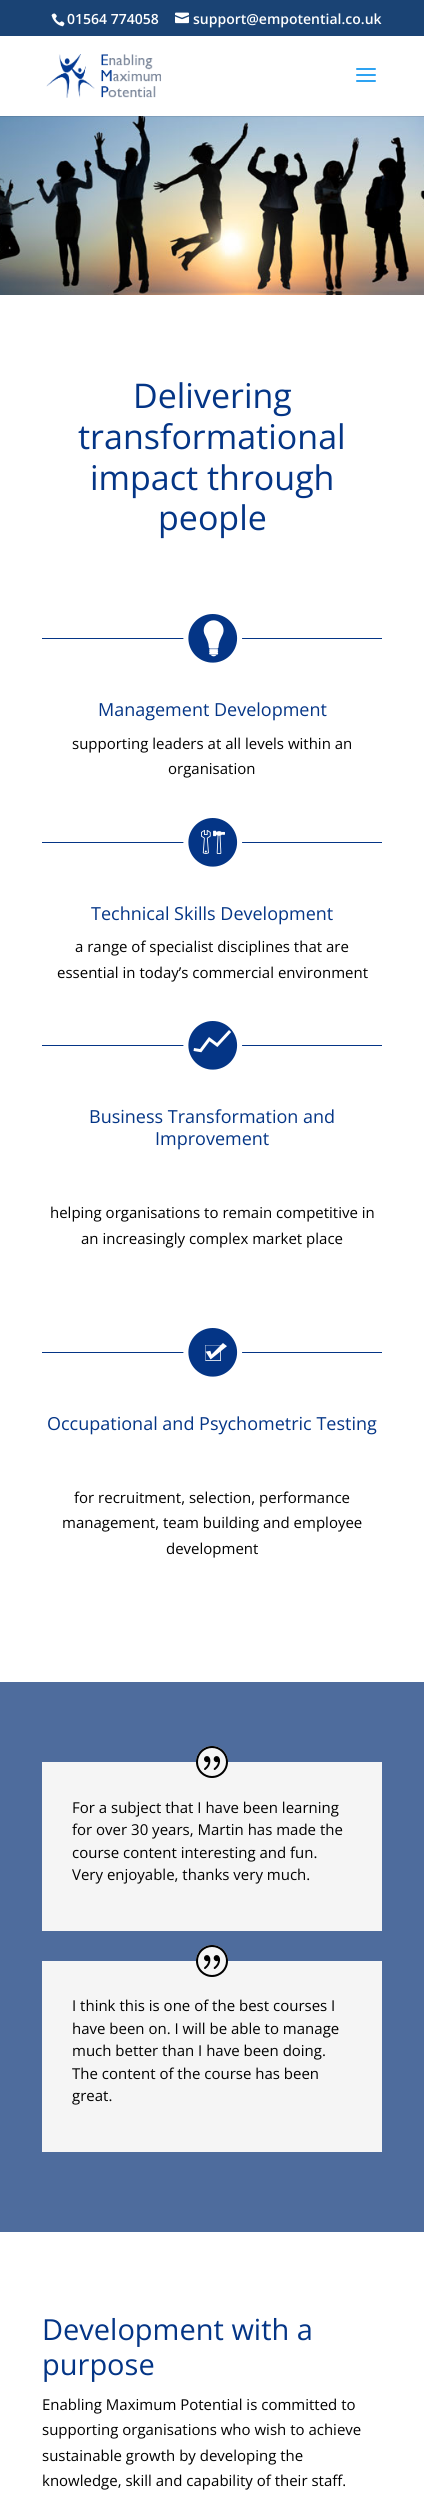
#include <cairo.h>
#include <math.h>
#include <stddef.h>


static void rgb(cairo_t *cr, int r, int g, int b)
{
	cairo_set_source_rgb(cr, r / 255.0, g / 255.0, b / 255.0);
}

static void face(cairo_t *cr, const char *family, double size, int italic, int bold)
{
	cairo_select_font_face(cr, family, italic ? CAIRO_FONT_SLANT_ITALIC : CAIRO_FONT_SLANT_NORMAL,
		bold ? CAIRO_FONT_WEIGHT_BOLD : CAIRO_FONT_WEIGHT_NORMAL);
	cairo_set_font_size(cr, size);
}

static void label(cairo_t *cr, double x, double y, const char *s)
{
	cairo_move_to(cr, x, y);
	cairo_show_text(cr, s);
}

static void rect(cairo_t *cr, double x, double y, double w, double h)
{
	cairo_rectangle(cr, x, y, w, h);
	cairo_fill(cr);
}

static void image(cairo_t *cr, const char *path, double x, double y, double w, double h)
{
	cairo_surface_t *image = cairo_image_surface_create_from_png(path);
	cairo_save(cr);
	cairo_set_source_surface(cr, image, x, y);
	cairo_rectangle(cr, x, y, w, h);
	cairo_fill(cr);
	cairo_restore(cr);
	cairo_surface_destroy(image);
}

static void draw(cairo_t *cr) {
	rgb(cr, 255, 255, 255);
	cairo_paint(cr);
	rgb(cr, 26, 67, 116);
	rect(cr, 0, 0, 424, 36);
	image(cr, "image0.png", 51, 13, 14, 14);
	face(cr, "Open Sans SemiBold", 14, 0, 0);
	rgb(cr, 255, 255, 255);
	label(cr, 67, 24, "01564 774058");
	image(cr, "image1.png", 175, 12, 14, 12);
	label(cr, 193, 24, "support@empotential.co.uk");
	image(cr, "image4.png", 0, 116, 424, 179);
	cairo_set_source_rgba(cr, 0, 0, 0, 0.1);
	rect(cr, 0, 116, 424, 1);
	image(cr, "image2.png", 46, 54, 115, 44);
	image(cr, "image3.png", 356, 68, 20, 14);
	face(cr, "Open Sans", 34, 0, 0);
	rgb(cr, 4, 53, 134);
	label(cr, 133, 408, "Delivering");
	label(cr, 78, 449, "transformational");
	label(cr, 90, 490, "impact through");
	label(cr, 158, 530, "people");
	rect(cr, 42, 638, 340, 1);
	image(cr, "image5.png", 183, 614, 60, 49);
	face(cr, "Open Sans", 18, 0, 0);
	label(cr, 98, 716, "Management Development");
	face(cr, "Open Sans", 15, 0, 0);
	rgb(cr, 0, 0, 0);
	label(cr, 72, 749, "supporting leaders at all levels within an");
	label(cr, 168, 774, "organisation");
	rgb(cr, 4, 53, 134);
	rect(cr, 42, 842, 340, 1);
	image(cr, "image6.png", 183, 818, 60, 49);
	face(cr, "Open Sans", 18, 0, 0);
	label(cr, 91, 920, "Technical Skills Development");
	face(cr, "Open Sans", 15, 0, 0);
	rgb(cr, 0, 0, 0);
	label(cr, 75, 952, "a range of specialist disciplines that are");
	label(cr, 57, 978, "essential in today’s commercial environment");
	rgb(cr, 4, 53, 134);
	rect(cr, 42, 1045, 340, 1);
	image(cr, "image7.png", 183, 1021, 60, 49);
	face(cr, "Open Sans", 18, 0, 0);
	label(cr, 89, 1123, "Business Transformation and");
	label(cr, 155, 1145, "Improvement");
	face(cr, "Open Sans", 15, 0, 0);
	rgb(cr, 0, 0, 0);
	label(cr, 50, 1218, "helping organisations to remain competitive in");
	label(cr, 81, 1244, "an increasingly complex market place");
	rgb(cr, 4, 53, 134);
	rect(cr, 42, 1352, 340, 1);
	image(cr, "image8.png", 183, 1328, 60, 49);
	face(cr, "Open Sans", 18, 0, 0);
	label(cr, 47, 1430, "Occupational and Psychometric Testing");
	face(cr, "Open Sans", 15, 0, 0);
	rgb(cr, 0, 0, 0);
	label(cr, 74, 1503, "for recruitment, selection, performance");
	label(cr, 62, 1528, "management, team building and employee");
	label(cr, 166, 1554, "development");
	rgb(cr, 78, 108, 157);
	rect(cr, 0, 1682, 424, 550);
	rgb(cr, 245, 245, 245);
	rect(cr, 42, 1762, 340, 169);
	cairo_new_path(cr);
	cairo_arc(cr, 212, 1762, 16, 0, 2 * M_PI);
	cairo_fill(cr);
	image(cr, "image9.png", 196, 1746, 32, 32);
	rgb(cr, 0, 0, 0);
	label(cr, 72, 1813, "For a subject that I have been learning");
	label(cr, 72, 1835, "for over 30 years, Martin has made the");
	label(cr, 72, 1858, "course content interesting and fun.");
	label(cr, 72, 1880, "Very enjoyable, thanks very much.");
	rgb(cr, 245, 245, 245);
	rect(cr, 42, 1961, 340, 191);
	cairo_new_path(cr);
	cairo_arc(cr, 212, 1961, 16, 0, 2 * M_PI);
	cairo_fill(cr);
	image(cr, "image9.png", 196, 1945, 32, 32);
	rgb(cr, 0, 0, 0);
	label(cr, 72, 2011, "I think this is one of the best courses I");
	label(cr, 72, 2034, "have been on. I will be able to manage");
	label(cr, 72, 2056, "much better than I have been doing.");
	label(cr, 72, 2079, "The content of the course has been");
	label(cr, 72, 2101, "great.");
	face(cr, "Open Sans", 29, 0, 0);
	rgb(cr, 4, 53, 134);
	label(cr, 42, 2340, "Development with a");
	label(cr, 42, 2375, "purpose");
	face(cr, "Open Sans", 15, 0, 0);
	rgb(cr, 0, 0, 0);
	label(cr, 42, 2410, "Enabling Maximum Potential is committed to");
	label(cr, 42, 2435, "supporting organisations who wish to achieve");
	label(cr, 42, 2461, "sustainable growth by developing the");
	label(cr, 42, 2486, "knowledge, skill and capability of their staff.");
}

int main(void) {
	cairo_surface_t *surface = cairo_image_surface_create(CAIRO_FORMAT_RGB24, 424, 2514);
	cairo_t *cr = cairo_create(surface);
	cairo_font_options_t *options = cairo_font_options_create();
	cairo_font_options_set_hint_metrics(options, CAIRO_HINT_METRICS_OFF);
	cairo_font_options_set_hint_style(options, CAIRO_HINT_STYLE_NONE);
	cairo_set_font_options(cr, options);
	cairo_set_miter_limit(cr, 4);
	draw(cr);
	cairo_surface_write_to_png(surface, "render.png");
	cairo_font_options_destroy(options);
	cairo_destroy(cr);
	cairo_surface_destroy(surface);
	return 0;
}
